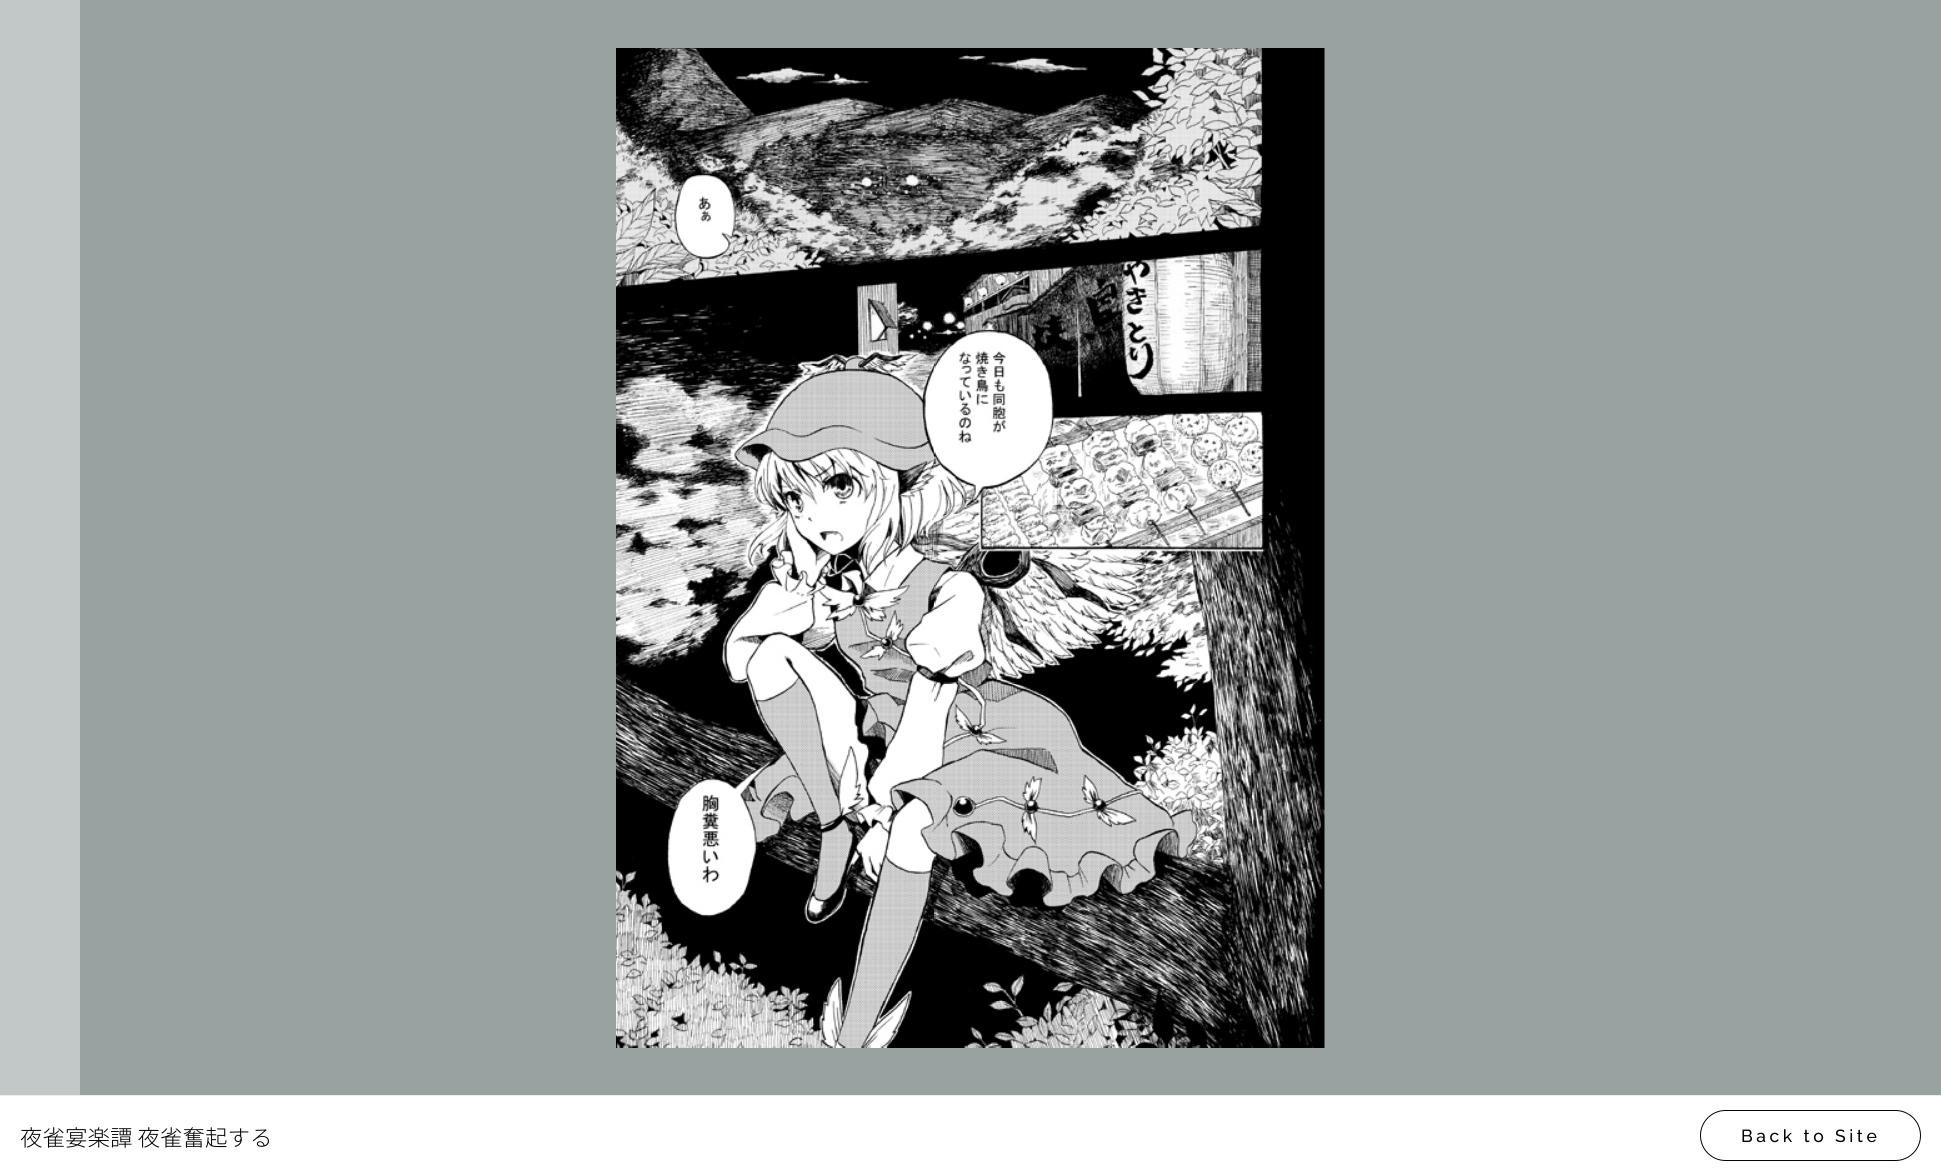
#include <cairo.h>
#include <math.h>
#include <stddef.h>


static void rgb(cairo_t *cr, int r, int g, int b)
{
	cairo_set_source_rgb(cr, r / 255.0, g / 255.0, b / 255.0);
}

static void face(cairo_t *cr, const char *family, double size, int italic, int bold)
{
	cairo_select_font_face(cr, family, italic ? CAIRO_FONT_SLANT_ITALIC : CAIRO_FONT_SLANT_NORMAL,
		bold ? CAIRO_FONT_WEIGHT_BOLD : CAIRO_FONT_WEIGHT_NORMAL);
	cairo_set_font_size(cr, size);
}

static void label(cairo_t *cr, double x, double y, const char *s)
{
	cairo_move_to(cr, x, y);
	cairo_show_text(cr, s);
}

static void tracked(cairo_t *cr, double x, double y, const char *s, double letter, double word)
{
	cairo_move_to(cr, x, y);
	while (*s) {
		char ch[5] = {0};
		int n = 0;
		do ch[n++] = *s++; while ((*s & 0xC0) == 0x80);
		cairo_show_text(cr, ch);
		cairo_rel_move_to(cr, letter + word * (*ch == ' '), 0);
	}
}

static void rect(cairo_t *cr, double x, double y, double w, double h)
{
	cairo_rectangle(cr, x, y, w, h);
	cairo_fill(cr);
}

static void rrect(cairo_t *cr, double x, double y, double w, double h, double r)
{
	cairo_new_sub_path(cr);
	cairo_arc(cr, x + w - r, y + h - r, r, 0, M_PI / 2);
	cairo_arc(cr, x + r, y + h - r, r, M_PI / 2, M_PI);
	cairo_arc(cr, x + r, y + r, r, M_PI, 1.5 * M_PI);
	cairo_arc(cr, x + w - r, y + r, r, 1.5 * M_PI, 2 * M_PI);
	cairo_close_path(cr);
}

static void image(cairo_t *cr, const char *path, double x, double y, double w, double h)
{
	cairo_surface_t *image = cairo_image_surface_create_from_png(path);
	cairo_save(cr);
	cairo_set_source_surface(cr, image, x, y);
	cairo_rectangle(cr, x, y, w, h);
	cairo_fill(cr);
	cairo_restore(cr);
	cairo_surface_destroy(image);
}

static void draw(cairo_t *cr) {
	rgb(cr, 255, 255, 255);
	cairo_paint(cr);
	rgb(cr, 153, 161, 161);
	rect(cr, 80, 0, 1861, 1095);
	rgb(cr, 194, 199, 199);
	rect(cr, 0, 0, 80, 1095);
	image(cr, "image0.png", 616, 48, 709, 1000);
	rgb(cr, 236, 238, 238);
	rect(cr, 0, 1095, 1941, 1);
	face(cr, "Noto Sans JP Light", 22.5, 0, 0);
	rgb(cr, 2, 4, 2);
	label(cr, 20, 1146, "夜雀宴楽譚 夜雀奮起する");
	rrect(cr, 1700.5, 1110.5, 220, 50, 25);
	cairo_set_line_width(cr, 1);
	cairo_stroke(cr);
	face(cr, "Raleway Medium", 17.5, 0, 0);
	tracked(cr, 1741, 1142, "Back to Site", 3.5, 0);
}

int main(void) {
	cairo_surface_t *surface = cairo_image_surface_create(CAIRO_FORMAT_RGB24, 1941, 1174);
	cairo_t *cr = cairo_create(surface);
	cairo_font_options_t *options = cairo_font_options_create();
	cairo_font_options_set_hint_metrics(options, CAIRO_HINT_METRICS_OFF);
	cairo_font_options_set_hint_style(options, CAIRO_HINT_STYLE_NONE);
	cairo_set_font_options(cr, options);
	cairo_set_miter_limit(cr, 4);
	draw(cr);
	cairo_surface_write_to_png(surface, "render.png");
	cairo_font_options_destroy(options);
	cairo_destroy(cr);
	cairo_surface_destroy(surface);
	return 0;
}
